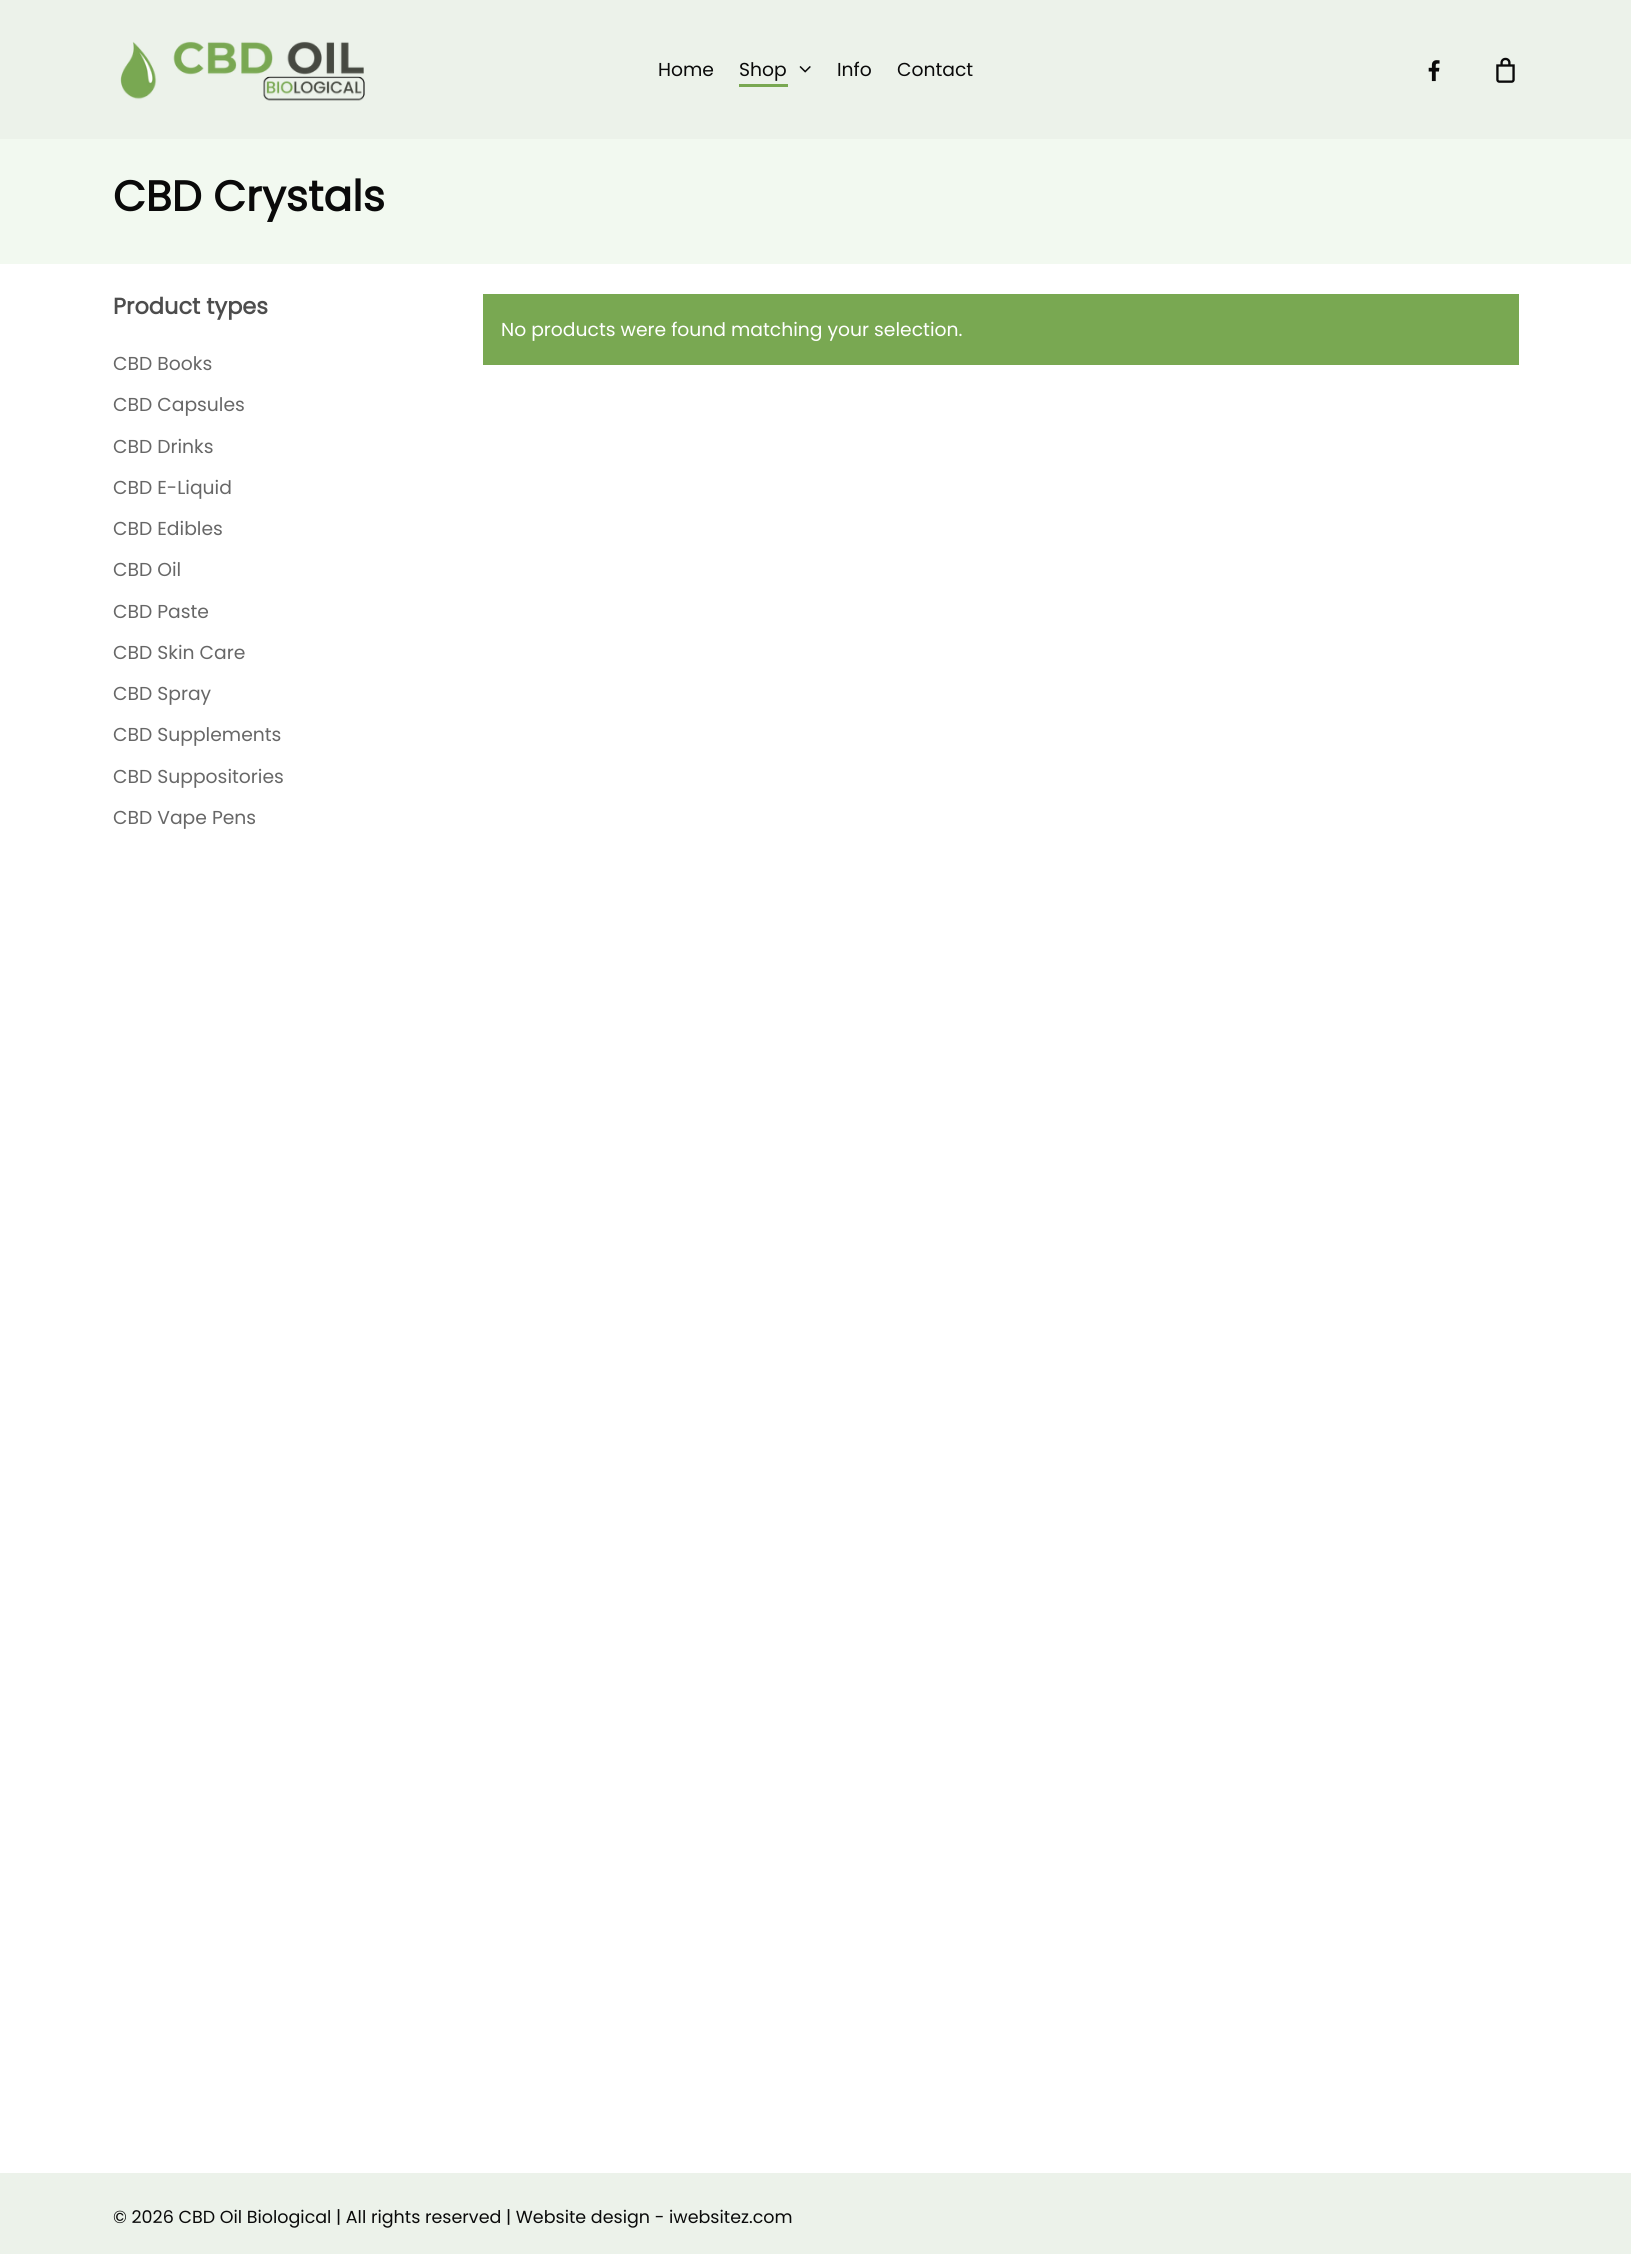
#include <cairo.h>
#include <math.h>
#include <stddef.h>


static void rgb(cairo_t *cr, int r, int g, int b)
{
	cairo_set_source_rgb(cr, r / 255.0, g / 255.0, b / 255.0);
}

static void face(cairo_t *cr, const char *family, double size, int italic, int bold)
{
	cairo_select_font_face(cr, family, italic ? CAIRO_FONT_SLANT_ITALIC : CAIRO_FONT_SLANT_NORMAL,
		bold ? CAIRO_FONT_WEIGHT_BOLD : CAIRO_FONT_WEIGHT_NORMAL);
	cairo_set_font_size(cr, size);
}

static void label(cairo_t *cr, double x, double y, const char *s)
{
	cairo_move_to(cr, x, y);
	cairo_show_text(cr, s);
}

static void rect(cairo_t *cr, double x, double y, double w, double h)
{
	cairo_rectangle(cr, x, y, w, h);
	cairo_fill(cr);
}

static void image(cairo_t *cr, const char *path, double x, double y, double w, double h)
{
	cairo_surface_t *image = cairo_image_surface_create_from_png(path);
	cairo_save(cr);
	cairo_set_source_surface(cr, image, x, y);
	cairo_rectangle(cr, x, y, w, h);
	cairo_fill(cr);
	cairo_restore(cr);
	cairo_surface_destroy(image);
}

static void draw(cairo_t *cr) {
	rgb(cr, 255, 255, 255);
	cairo_paint(cr);
	rgb(cr, 236, 242, 234);
	rect(cr, 0, 0, 1631, 139);
	image(cr, "image0.png", 120, 41, 245, 60);
	face(cr, "Poppins", 18.75, 0, 0);
	rgb(cr, 10, 10, 10);
	label(cr, 658, 76, "Home");
	label(cr, 739, 76, "Shop");
	rgb(cr, 121, 168, 82);
	rect(cr, 739, 84, 49, 3);
	image(cr, "image1.png", 799, 66, 12, 7);
	rgb(cr, 10, 10, 10);
	label(cr, 837, 76, "Info");
	label(cr, 897, 76, "Contact");
	image(cr, "image2.png", 1428, 60, 12, 22);
	image(cr, "image3.png", 1496, 57, 19, 26);
	rgb(cr, 242, 249, 240);
	rect(cr, 0, 139, 1631, 125);
	face(cr, "Poppins", 42.5, 0, 1);
	rgb(cr, 10, 10, 10);
	label(cr, 113, 211, "CBD Crystals");
	face(cr, "Poppins", 22.5, 0, 1);
	rgb(cr, 77, 77, 77);
	label(cr, 113, 314, "Product types");
	face(cr, "Poppins", 18.75, 0, 0);
	rgb(cr, 103, 103, 103);
	label(cr, 113, 370, "CBD Books");
	label(cr, 113, 411, "CBD Capsules");
	label(cr, 113, 453, "CBD Drinks");
	label(cr, 113, 494, "CBD E-Liquid");
	label(cr, 113, 535, "CBD Edibles");
	label(cr, 113, 576, "CBD Oil");
	label(cr, 113, 618, "CBD Paste");
	label(cr, 113, 659, "CBD Skin Care");
	label(cr, 113, 700, "CBD Spray");
	label(cr, 113, 741, "CBD Supplements");
	label(cr, 113, 783, "CBD Suppositories");
	label(cr, 113, 824, "CBD Vape Pens");
	rgb(cr, 121, 168, 82);
	rect(cr, 483, 294, 1036, 71);
	rgb(cr, 255, 255, 255);
	label(cr, 501, 336, "No products were found matching your selection.");
	rgb(cr, 236, 242, 234);
	rect(cr, 0, 2173, 1631, 81);
	face(cr, "Poppins", 17.5, 0, 0);
	rgb(cr, 10, 10, 10);
	label(cr, 113, 2223, "© 2026 CBD Oil Biological | All rights reserved | Website design - iwebsitez.com");
}

int main(void) {
	cairo_surface_t *surface = cairo_image_surface_create(CAIRO_FORMAT_RGB24, 1631, 2254);
	cairo_t *cr = cairo_create(surface);
	cairo_font_options_t *options = cairo_font_options_create();
	cairo_font_options_set_hint_metrics(options, CAIRO_HINT_METRICS_OFF);
	cairo_font_options_set_hint_style(options, CAIRO_HINT_STYLE_NONE);
	cairo_set_font_options(cr, options);
	cairo_set_miter_limit(cr, 4);
	draw(cr);
	cairo_surface_write_to_png(surface, "render.png");
	cairo_font_options_destroy(options);
	cairo_destroy(cr);
	cairo_surface_destroy(surface);
	return 0;
}
